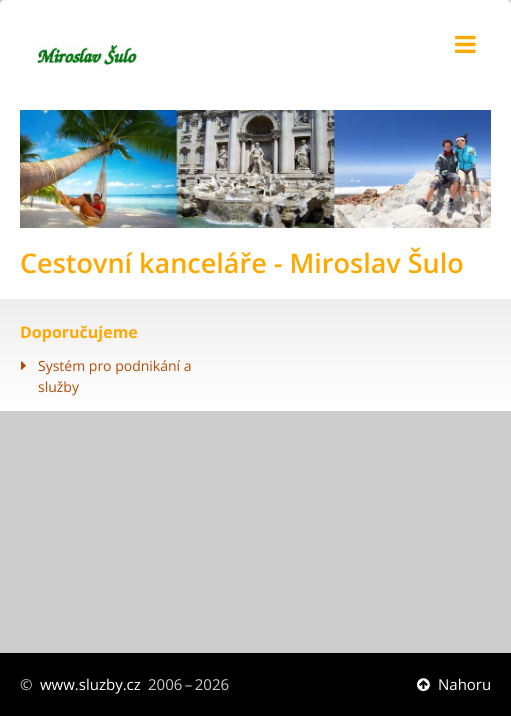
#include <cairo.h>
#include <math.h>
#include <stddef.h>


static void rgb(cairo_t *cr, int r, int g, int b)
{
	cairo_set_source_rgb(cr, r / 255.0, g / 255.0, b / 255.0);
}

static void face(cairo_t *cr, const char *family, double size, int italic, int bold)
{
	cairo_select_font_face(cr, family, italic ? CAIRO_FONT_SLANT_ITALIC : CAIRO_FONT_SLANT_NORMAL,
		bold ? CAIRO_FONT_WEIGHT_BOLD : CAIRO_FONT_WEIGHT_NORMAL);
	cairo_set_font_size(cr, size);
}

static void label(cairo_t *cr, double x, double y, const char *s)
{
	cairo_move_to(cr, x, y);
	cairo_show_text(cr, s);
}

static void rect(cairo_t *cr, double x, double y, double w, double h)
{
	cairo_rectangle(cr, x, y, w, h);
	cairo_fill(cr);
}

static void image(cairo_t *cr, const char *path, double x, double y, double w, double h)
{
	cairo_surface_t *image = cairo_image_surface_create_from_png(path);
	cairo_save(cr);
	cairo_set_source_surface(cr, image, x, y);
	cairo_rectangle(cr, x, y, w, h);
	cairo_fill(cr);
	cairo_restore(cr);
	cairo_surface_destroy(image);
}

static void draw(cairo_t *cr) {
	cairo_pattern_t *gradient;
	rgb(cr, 204, 204, 204);
	cairo_paint(cr);
	rgb(cr, 255, 255, 255);
	cairo_new_path(cr);
	cairo_move_to(cr, 5, 0);
	cairo_line_to(cr, 506, 0);
	cairo_curve_to(cr, 509, 0, 511, 2, 511, 5);
	cairo_line_to(cr, 511, 248);
	cairo_line_to(cr, 0, 248);
	cairo_line_to(cr, 0, 5);
	cairo_curve_to(cr, 0, 2, 2, 0, 5, 0);
	cairo_close_path(cr);
	cairo_fill(cr);
	image(cr, "image0.png", 37, 45, 100, 20);
	image(cr, "image1.png", 455, 35, 21, 18);
	image(cr, "image2.png", 20, 110, 471, 118);
	rect(cr, 0, 248, 511, 51);
	face(cr, "Open Sans SemiBold", 27, 0, 0);
	rgb(cr, 255, 168, 0);
	label(cr, 20, 273, "Cestovní kanceláře - Miroslav Šulo");
	gradient = cairo_pattern_create_linear(256, 299, 256, 411);
	cairo_pattern_add_color_stop_rgba(gradient, 0, 0.933, 0.933, 0.933, 1);
	cairo_pattern_add_color_stop_rgba(gradient, 1, 1, 1, 1, 1);
	cairo_set_source(cr, gradient);
	cairo_pattern_destroy(gradient);
	rect(cr, 0, 299, 511, 112);
	face(cr, "Open Sans", 16, 0, 1);
	rgb(cr, 255, 168, 0);
	label(cr, 20, 338, "Doporučujeme");
	image(cr, "image3.png", 21, 361, 5, 9);
	face(cr, "Open Sans", 14, 0, 0);
	rgb(cr, 179, 75, 6);
	label(cr, 38, 371, "Systém pro podnikání a");
	label(cr, 38, 392, "služby");
	rgb(cr, 0, 0, 0);
	rect(cr, 0, 653, 511, 63);
	face(cr, "Open Sans", 15, 0, 0);
	rgb(cr, 204, 204, 204);
	label(cr, 20, 690, "©");
	rgb(cr, 255, 255, 255);
	label(cr, 40, 690, "www.sluzby.cz");
	rgb(cr, 204, 204, 204);
	label(cr, 148, 690, "2006 – 2026");
	image(cr, "image4.png", 417, 678, 13, 14);
	rgb(cr, 255, 255, 255);
	label(cr, 438, 690, "Nahoru");
}

int main(void) {
	cairo_surface_t *surface = cairo_image_surface_create(CAIRO_FORMAT_RGB24, 511, 716);
	cairo_t *cr = cairo_create(surface);
	cairo_font_options_t *options = cairo_font_options_create();
	cairo_font_options_set_hint_metrics(options, CAIRO_HINT_METRICS_OFF);
	cairo_font_options_set_hint_style(options, CAIRO_HINT_STYLE_NONE);
	cairo_set_font_options(cr, options);
	cairo_set_miter_limit(cr, 4);
	draw(cr);
	cairo_surface_write_to_png(surface, "render.png");
	cairo_font_options_destroy(options);
	cairo_destroy(cr);
	cairo_surface_destroy(surface);
	return 0;
}
